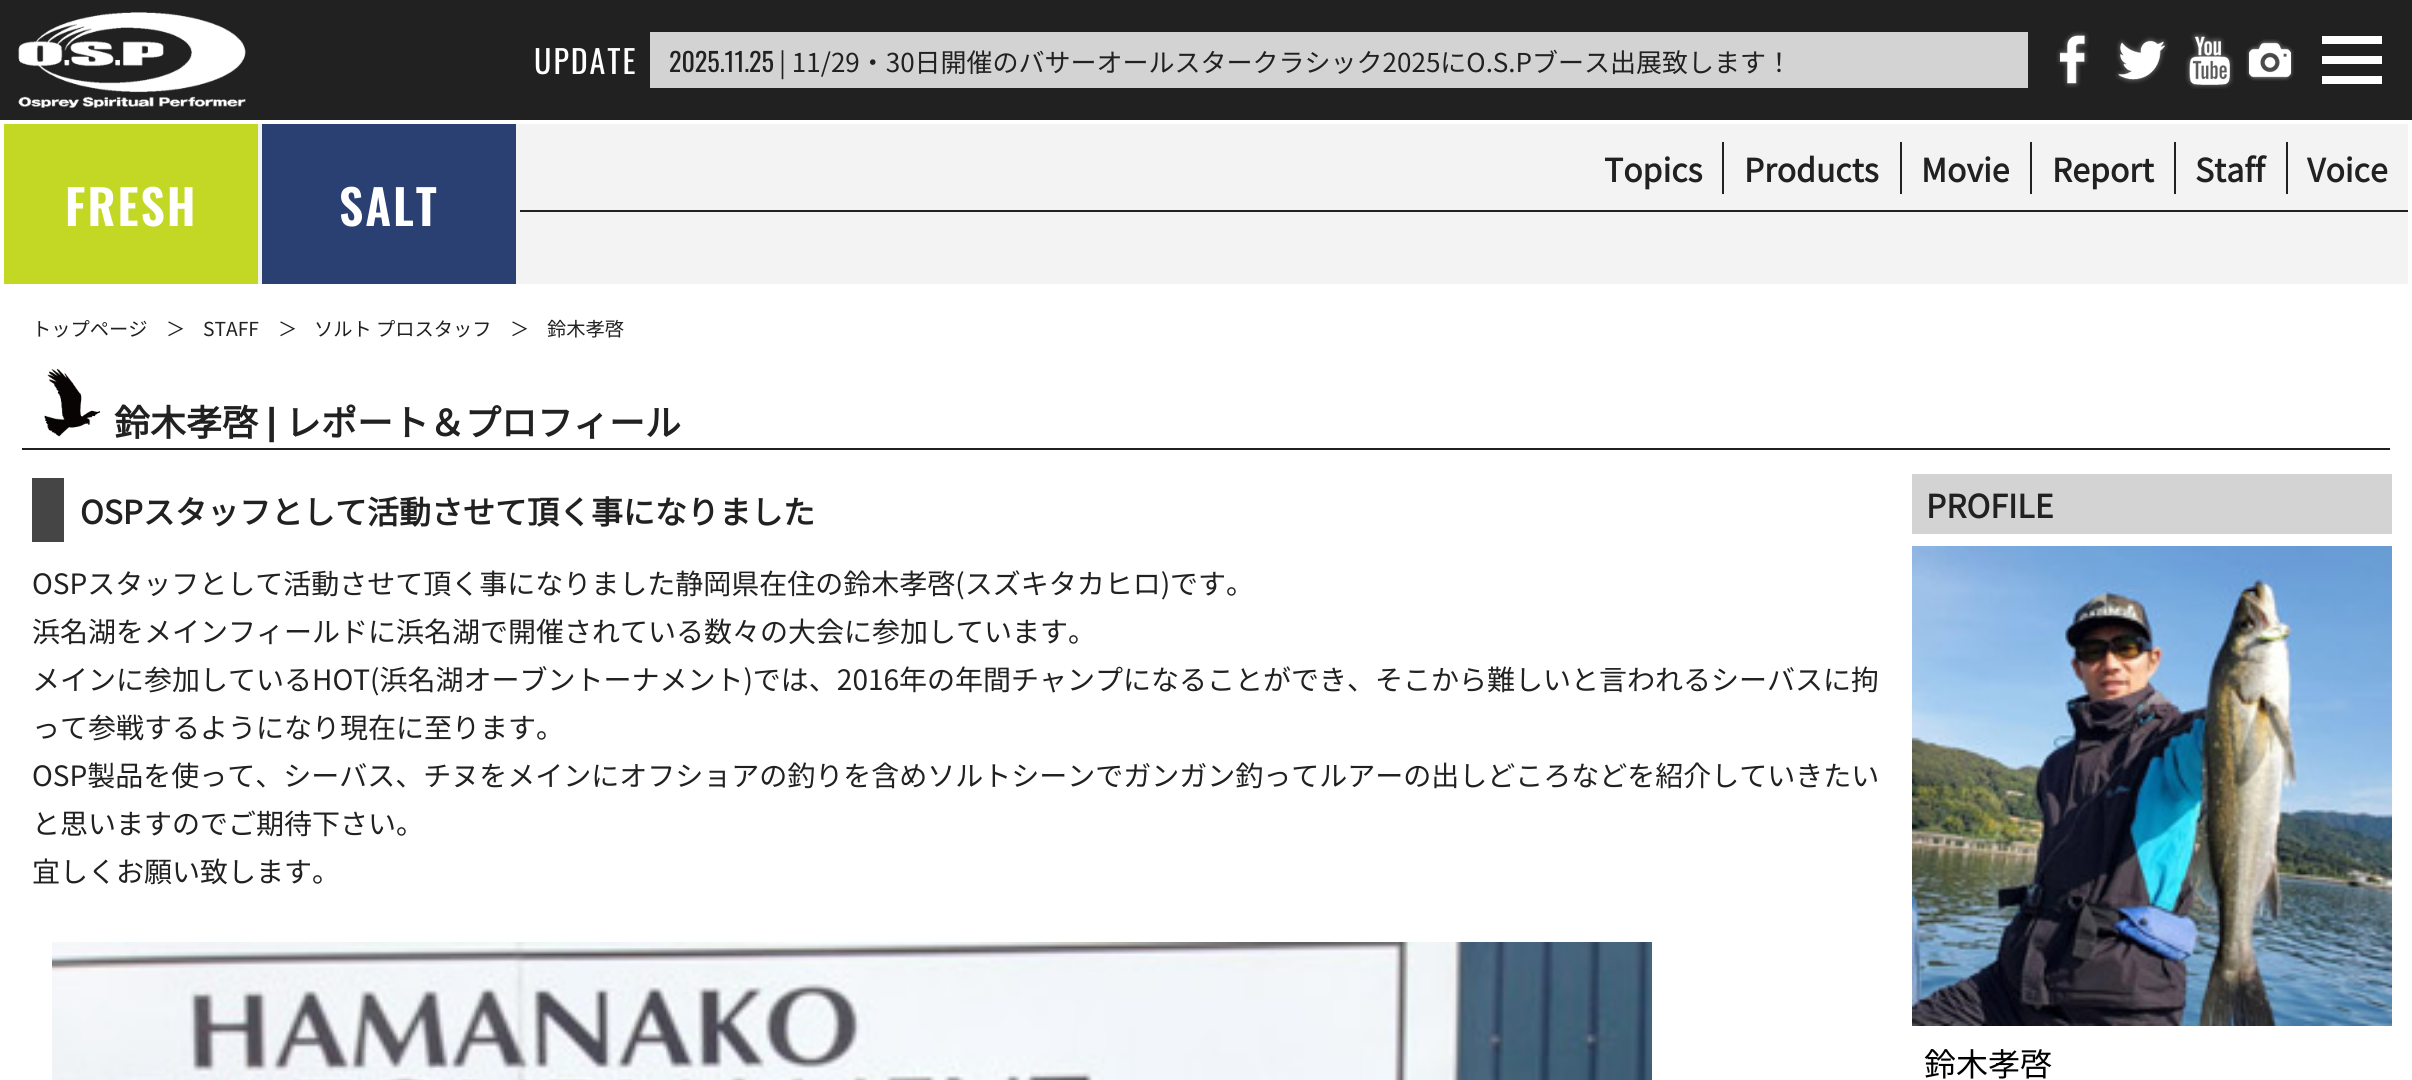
#include <cairo.h>
#include <math.h>
#include <stddef.h>


static void rgb(cairo_t *cr, int r, int g, int b)
{
	cairo_set_source_rgb(cr, r / 255.0, g / 255.0, b / 255.0);
}

static void face(cairo_t *cr, const char *family, double size, int italic, int bold)
{
	cairo_select_font_face(cr, family, italic ? CAIRO_FONT_SLANT_ITALIC : CAIRO_FONT_SLANT_NORMAL,
		bold ? CAIRO_FONT_WEIGHT_BOLD : CAIRO_FONT_WEIGHT_NORMAL);
	cairo_set_font_size(cr, size);
}

static void label(cairo_t *cr, double x, double y, const char *s)
{
	cairo_move_to(cr, x, y);
	cairo_show_text(cr, s);
}

static void tracked(cairo_t *cr, double x, double y, const char *s, double letter, double word)
{
	cairo_move_to(cr, x, y);
	while (*s) {
		char ch[5] = {0};
		int n = 0;
		do ch[n++] = *s++; while ((*s & 0xC0) == 0x80);
		cairo_show_text(cr, ch);
		cairo_rel_move_to(cr, letter + word * (*ch == ' '), 0);
	}
}

static void rect(cairo_t *cr, double x, double y, double w, double h)
{
	cairo_rectangle(cr, x, y, w, h);
	cairo_fill(cr);
}

static void image(cairo_t *cr, const char *path, double x, double y, double w, double h)
{
	cairo_surface_t *image = cairo_image_surface_create_from_png(path);
	cairo_save(cr);
	cairo_set_source_surface(cr, image, x, y);
	cairo_rectangle(cr, x, y, w, h);
	cairo_fill(cr);
	cairo_restore(cr);
	cairo_surface_destroy(image);
}

static void draw(cairo_t *cr) {
	rgb(cr, 255, 255, 255);
	cairo_paint(cr);
	rgb(cr, 33, 33, 33);
	rect(cr, 0, 0, 2412, 120);
	image(cr, "image0.png", 18, 12, 228, 96);
	face(cr, "Oswald", 32, 0, 0);
	rgb(cr, 255, 255, 255);
	tracked(cr, 534, 74, "UPDATE", 2, 0);
	rgb(cr, 211, 211, 211);
	rect(cr, 650, 32, 1378, 56);
	face(cr, "Oswald", 26, 0, 0);
	rgb(cr, 33, 33, 33);
	label(cr, 669, 72, "2025.11.25");
	face(cr, "Noto Sans JP Thin", 26, 0, 0);
	label(cr, 779, 72, "| 11/29・30日開催のバサーオールスタークラシック2025にO.S.Pブース出展致します！");
	image(cr, "image1.png", 2056, 31, 33, 57);
	image(cr, "image2.png", 2115, 36, 53, 48);
	image(cr, "image3.png", 2185, 32, 49, 57);
	image(cr, "image4.png", 2246, 39, 48, 42);
	rgb(cr, 255, 255, 255);
	rect(cr, 2322, 36, 60, 8);
	rect(cr, 2322, 56, 60, 8);
	rect(cr, 2322, 76, 60, 8);
	rgb(cr, 243, 243, 243);
	rect(cr, 258, 124, 2150, 160);
	face(cr, "Noto Sans JP", 32, 0, 1);
	rgb(cr, 33, 33, 33);
	label(cr, 1604, 182, "Topics");
	rect(cr, 1722, 142, 2, 52);
	label(cr, 1744, 182, "Products");
	rect(cr, 1900, 142, 2, 52);
	label(cr, 1921, 182, "Movie");
	rect(cr, 2030, 142, 2, 52);
	label(cr, 2052, 182, "Report");
	rect(cr, 2174, 142, 2, 52);
	label(cr, 2195, 182, "Staff");
	rect(cr, 2286, 142, 2, 52);
	label(cr, 2307, 182, "Voice");
	rect(cr, 520, 210, 1888, 2);
	rgb(cr, 195, 216, 37);
	rect(cr, 4, 124, 254, 160);
	face(cr, "Oswald SemiBold", 48, 0, 0);
	rgb(cr, 255, 255, 255);
	tracked(cr, 65, 226, "FRESH", 2, 0);
	rgb(cr, 42, 64, 115);
	rect(cr, 262, 124, 254, 160);
	rgb(cr, 255, 255, 255);
	tracked(cr, 339, 226, "SALT", 2, 0);
	face(cr, "Noto Sans JP Thin", 19.25, 0, 0);
	rgb(cr, 33, 33, 33);
	label(cr, 32, 336, "トップページ");
	label(cr, 166, 336, "＞");
	label(cr, 203, 336, "STAFF");
	label(cr, 278, 336, "＞");
	label(cr, 314, 336, "ソルト プロスタッフ");
	label(cr, 510, 336, "＞");
	label(cr, 547, 336, "鈴木孝啓");
	image(cr, "image5.png", 44, 368, 56, 69);
	rect(cr, 22, 448, 2368, 2);
	face(cr, "Noto Sans JP", 36, 0, 1);
	label(cr, 114, 436, "鈴木孝啓");
	face(cr, "Oswald SemiBold", 36, 0, 0);
	label(cr, 267, 436, "|");
	face(cr, "Noto Sans JP", 36, 0, 1);
	label(cr, 285, 436, "レポート＆プロフィール");
	rgb(cr, 69, 69, 69);
	rect(cr, 32, 478, 32, 64);
	face(cr, "Noto Sans JP", 32, 0, 1);
	rgb(cr, 33, 33, 33);
	label(cr, 80, 524, "OSPスタッフとして活動させて頂く事になりました");
	face(cr, "Noto Sans JP Thin", 28, 0, 0);
	label(cr, 32, 594, "OSPスタッフとして活動させて頂く事になりました静岡県在住の鈴木孝啓(スズキタカヒロ)です。");
	label(cr, 32, 642, "浜名湖をメインフィールドに浜名湖で開催されている数々の大会に参加しています。");
	label(cr, 32, 690, "メインに参加しているHOT(浜名湖オーブントーナメント)では、2016年の年間チャンプになることができ、そこから難しいと言われるシーバスに拘");
	label(cr, 32, 738, "って参戦するようになり現在に至ります。");
	label(cr, 32, 786, "OSP製品を使って、シーバス、チヌをメインにオフショアの釣りを含めソルトシーンでガンガン釣ってルアーの出しどころなどを紹介していきたい");
	label(cr, 32, 834, "と思いますのでご期待下さい。");
	label(cr, 32, 882, "宜しくお願い致します。");
	image(cr, "image6.png", 52, 942, 1600, 138);
	rgb(cr, 211, 211, 211);
	rect(cr, 1912, 474, 480, 60);
	face(cr, "Noto Sans JP", 32, 0, 1);
	rgb(cr, 33, 33, 33);
	label(cr, 1926, 518, "PROFILE");
	image(cr, "image7.png", 1912, 546, 480, 480);
	face(cr, "Noto Sans JP Thin", 32, 0, 0);
	rgb(cr, 0, 0, 0);
	label(cr, 1924, 1076, "鈴木孝啓");
}

int main(void) {
	cairo_surface_t *surface = cairo_image_surface_create(CAIRO_FORMAT_RGB24, 2412, 1080);
	cairo_t *cr = cairo_create(surface);
	cairo_font_options_t *options = cairo_font_options_create();
	cairo_font_options_set_hint_metrics(options, CAIRO_HINT_METRICS_OFF);
	cairo_font_options_set_hint_style(options, CAIRO_HINT_STYLE_NONE);
	cairo_set_font_options(cr, options);
	cairo_set_miter_limit(cr, 4);
	draw(cr);
	cairo_surface_write_to_png(surface, "render.png");
	cairo_font_options_destroy(options);
	cairo_destroy(cr);
	cairo_surface_destroy(surface);
	return 0;
}
